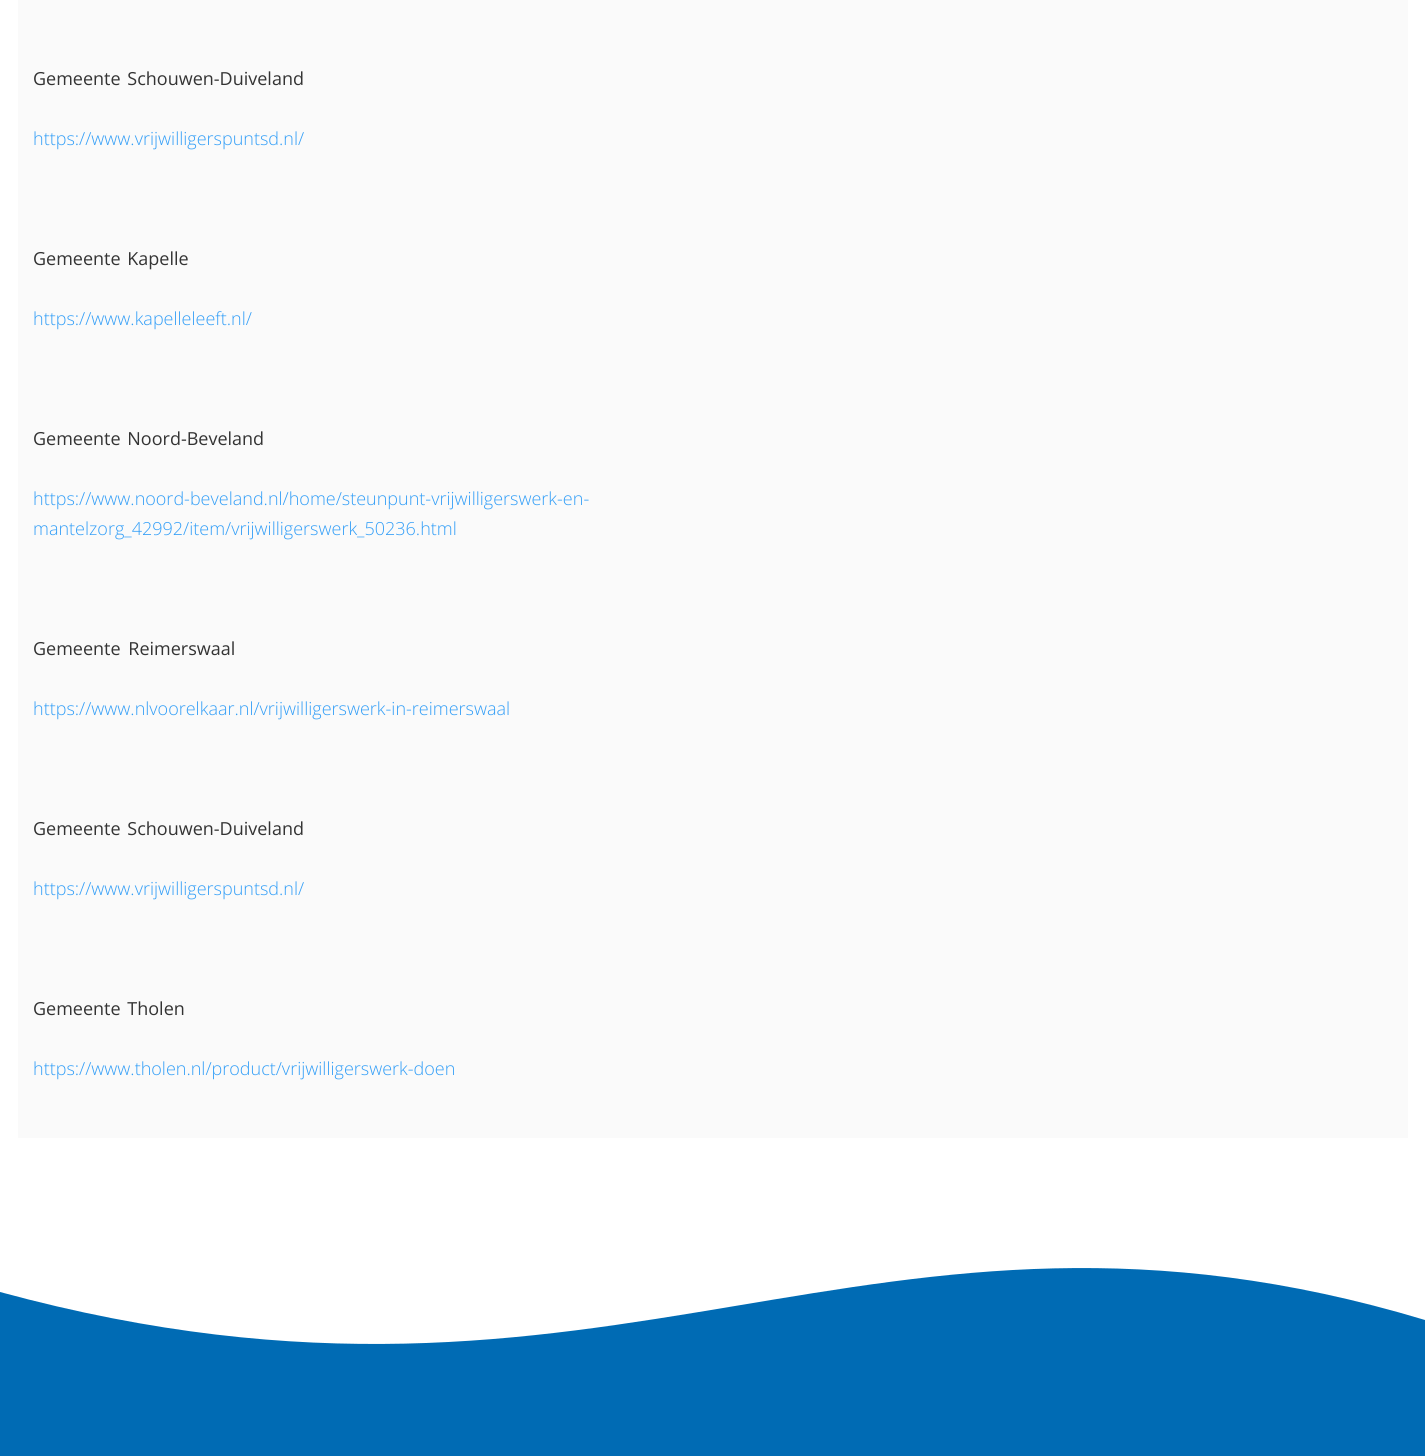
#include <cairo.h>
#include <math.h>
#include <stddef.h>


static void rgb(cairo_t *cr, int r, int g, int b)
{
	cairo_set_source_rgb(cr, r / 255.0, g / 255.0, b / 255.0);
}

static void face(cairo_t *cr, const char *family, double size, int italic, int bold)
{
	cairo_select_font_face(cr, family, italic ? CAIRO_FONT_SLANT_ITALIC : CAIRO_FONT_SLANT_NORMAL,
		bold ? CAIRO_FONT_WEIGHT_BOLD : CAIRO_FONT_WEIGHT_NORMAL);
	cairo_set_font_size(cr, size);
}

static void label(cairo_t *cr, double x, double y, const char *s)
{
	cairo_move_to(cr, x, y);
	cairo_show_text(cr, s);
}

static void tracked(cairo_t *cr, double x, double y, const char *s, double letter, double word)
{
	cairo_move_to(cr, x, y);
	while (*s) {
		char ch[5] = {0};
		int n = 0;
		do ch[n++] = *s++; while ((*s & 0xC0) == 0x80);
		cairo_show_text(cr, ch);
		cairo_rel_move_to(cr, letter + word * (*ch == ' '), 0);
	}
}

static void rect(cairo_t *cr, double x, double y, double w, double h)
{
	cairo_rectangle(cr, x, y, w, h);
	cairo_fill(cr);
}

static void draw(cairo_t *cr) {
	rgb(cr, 255, 255, 255);
	cairo_paint(cr);
	rgb(cr, 250, 250, 250);
	rect(cr, 18, 0, 1390, 1138);
	face(cr, "Open Sans", 18, 0, 0);
	rgb(cr, 51, 51, 51);
	tracked(cr, 33, 85, "Gemeente Schouwen-Duiveland", 0, 2);
	face(cr, "Open Sans Light", 18, 0, 0);
	rgb(cr, 50, 158, 247);
	label(cr, 33, 145, "https://www.vrijwilligerspuntsd.nl/");
	face(cr, "Open Sans", 18, 0, 0);
	rgb(cr, 51, 51, 51);
	tracked(cr, 33, 265, "Gemeente Kapelle", 0, 2);
	face(cr, "Open Sans Light", 18, 0, 0);
	rgb(cr, 50, 158, 247);
	label(cr, 33, 325, "https://www.kapelleleeft.nl/");
	face(cr, "Open Sans", 18, 0, 0);
	rgb(cr, 51, 51, 51);
	tracked(cr, 33, 445, "Gemeente Noord-Beveland", 0, 2);
	face(cr, "Open Sans Light", 18, 0, 0);
	rgb(cr, 50, 158, 247);
	label(cr, 33, 505, "https://www.noord-beveland.nl/home/steunpunt-vrijwilligerswerk-en-");
	label(cr, 33, 535, "mantelzorg_42992/item/vrijwilligerswerk_50236.html");
	face(cr, "Open Sans", 18, 0, 0);
	rgb(cr, 51, 51, 51);
	tracked(cr, 33, 655, "Gemeente Reimerswaal", 0, 3);
	face(cr, "Open Sans Light", 18, 0, 0);
	rgb(cr, 50, 158, 247);
	label(cr, 33, 715, "https://www.nlvoorelkaar.nl/vrijwilligerswerk-in-reimerswaal");
	face(cr, "Open Sans", 18, 0, 0);
	rgb(cr, 51, 51, 51);
	tracked(cr, 33, 835, "Gemeente Schouwen-Duiveland", 0, 2);
	face(cr, "Open Sans Light", 18, 0, 0);
	rgb(cr, 50, 158, 247);
	label(cr, 33, 895, "https://www.vrijwilligerspuntsd.nl/");
	face(cr, "Open Sans", 18, 0, 0);
	rgb(cr, 51, 51, 51);
	tracked(cr, 33, 1015, "Gemeente Tholen", 0, 2);
	face(cr, "Open Sans Light", 18, 0, 0);
	rgb(cr, 50, 158, 247);
	label(cr, 33, 1075, "https://www.tholen.nl/product/vrijwilligerswerk-doen");
	rgb(cr, 0, 107, 180);
	rect(cr, 0, 1268, 1425, 188);
	rgb(cr, 255, 255, 255);
	cairo_new_path(cr);
	cairo_move_to(cr, 0, 1292);
	cairo_curve_to(cr, 618, 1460, 867, 1152, 1425, 1320);
	cairo_line_to(cr, 1425, 1138);
	cairo_line_to(cr, 0, 1138);
	cairo_close_path(cr);
	cairo_fill(cr);
}

int main(void) {
	cairo_surface_t *surface = cairo_image_surface_create(CAIRO_FORMAT_RGB24, 1425, 1456);
	cairo_t *cr = cairo_create(surface);
	cairo_font_options_t *options = cairo_font_options_create();
	cairo_font_options_set_hint_metrics(options, CAIRO_HINT_METRICS_OFF);
	cairo_font_options_set_hint_style(options, CAIRO_HINT_STYLE_NONE);
	cairo_set_font_options(cr, options);
	cairo_set_miter_limit(cr, 4);
	draw(cr);
	cairo_surface_write_to_png(surface, "render.png");
	cairo_font_options_destroy(options);
	cairo_destroy(cr);
	cairo_surface_destroy(surface);
	return 0;
}
